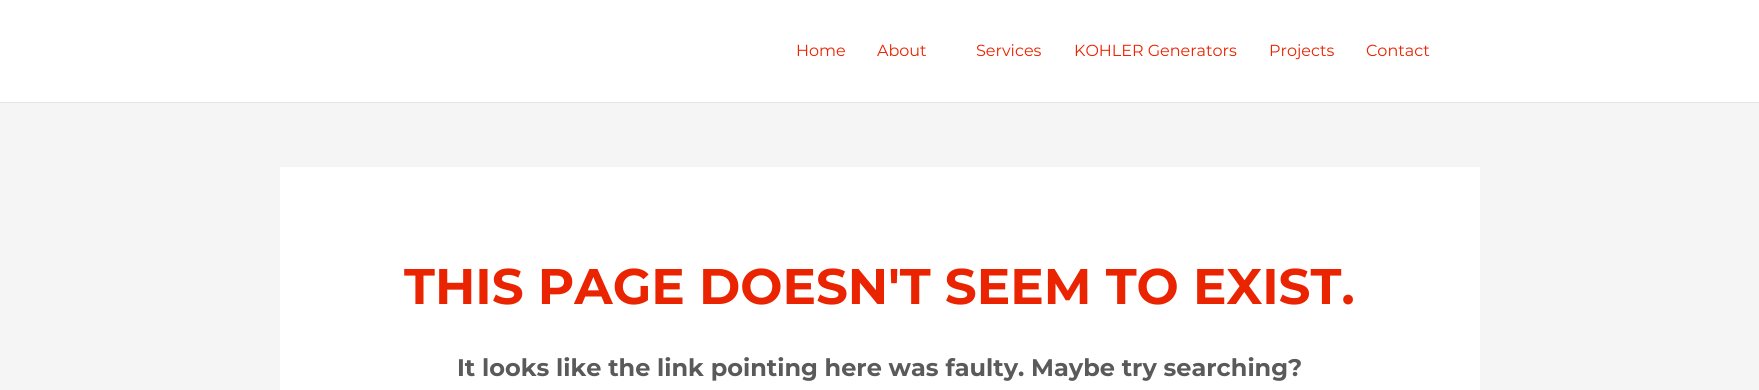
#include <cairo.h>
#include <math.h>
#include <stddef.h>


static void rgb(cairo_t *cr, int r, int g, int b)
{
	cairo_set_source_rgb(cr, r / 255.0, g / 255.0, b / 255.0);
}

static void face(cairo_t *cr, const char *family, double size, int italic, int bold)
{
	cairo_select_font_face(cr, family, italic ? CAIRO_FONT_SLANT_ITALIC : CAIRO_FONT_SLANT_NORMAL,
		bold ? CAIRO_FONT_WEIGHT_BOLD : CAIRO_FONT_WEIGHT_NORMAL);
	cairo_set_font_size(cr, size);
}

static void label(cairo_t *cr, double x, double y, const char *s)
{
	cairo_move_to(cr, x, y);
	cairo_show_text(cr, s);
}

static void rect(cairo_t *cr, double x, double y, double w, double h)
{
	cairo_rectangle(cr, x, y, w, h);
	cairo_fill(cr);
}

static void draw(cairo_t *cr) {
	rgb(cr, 245, 245, 245);
	cairo_paint(cr);
	rgb(cr, 255, 255, 255);
	rect(cr, 0, 0, 1759, 102);
	rgb(cr, 230, 230, 230);
	rect(cr, 0, 102, 1759, 1);
	face(cr, "Montserrat", 16, 0, 0);
	rgb(cr, 234, 35, 0);
	label(cr, 796, 56, "Home");
	label(cr, 877, 56, "About");
	label(cr, 976, 56, "Services");
	label(cr, 1074, 56, "KOHLER Generators");
	label(cr, 1269, 56, "Projects");
	label(cr, 1366, 56, "Contact");
	rgb(cr, 255, 255, 255);
	rect(cr, 280, 167, 1200, 223);
	face(cr, "Montserrat", 50, 0, 1);
	rgb(cr, 234, 35, 0);
	label(cr, 404, 304, "THIS PAGE DOESN'T SEEM TO EXIST.");
	face(cr, "Montserrat", 24, 0, 1);
	rgb(cr, 90, 90, 90);
	label(cr, 457, 376, "It looks like the link pointing here was faulty. Maybe try searching?");
}

int main(void) {
	cairo_surface_t *surface = cairo_image_surface_create(CAIRO_FORMAT_RGB24, 1759, 390);
	cairo_t *cr = cairo_create(surface);
	cairo_font_options_t *options = cairo_font_options_create();
	cairo_font_options_set_hint_metrics(options, CAIRO_HINT_METRICS_OFF);
	cairo_font_options_set_hint_style(options, CAIRO_HINT_STYLE_NONE);
	cairo_set_font_options(cr, options);
	cairo_set_miter_limit(cr, 4);
	draw(cr);
	cairo_surface_write_to_png(surface, "render.png");
	cairo_font_options_destroy(options);
	cairo_destroy(cr);
	cairo_surface_destroy(surface);
	return 0;
}
